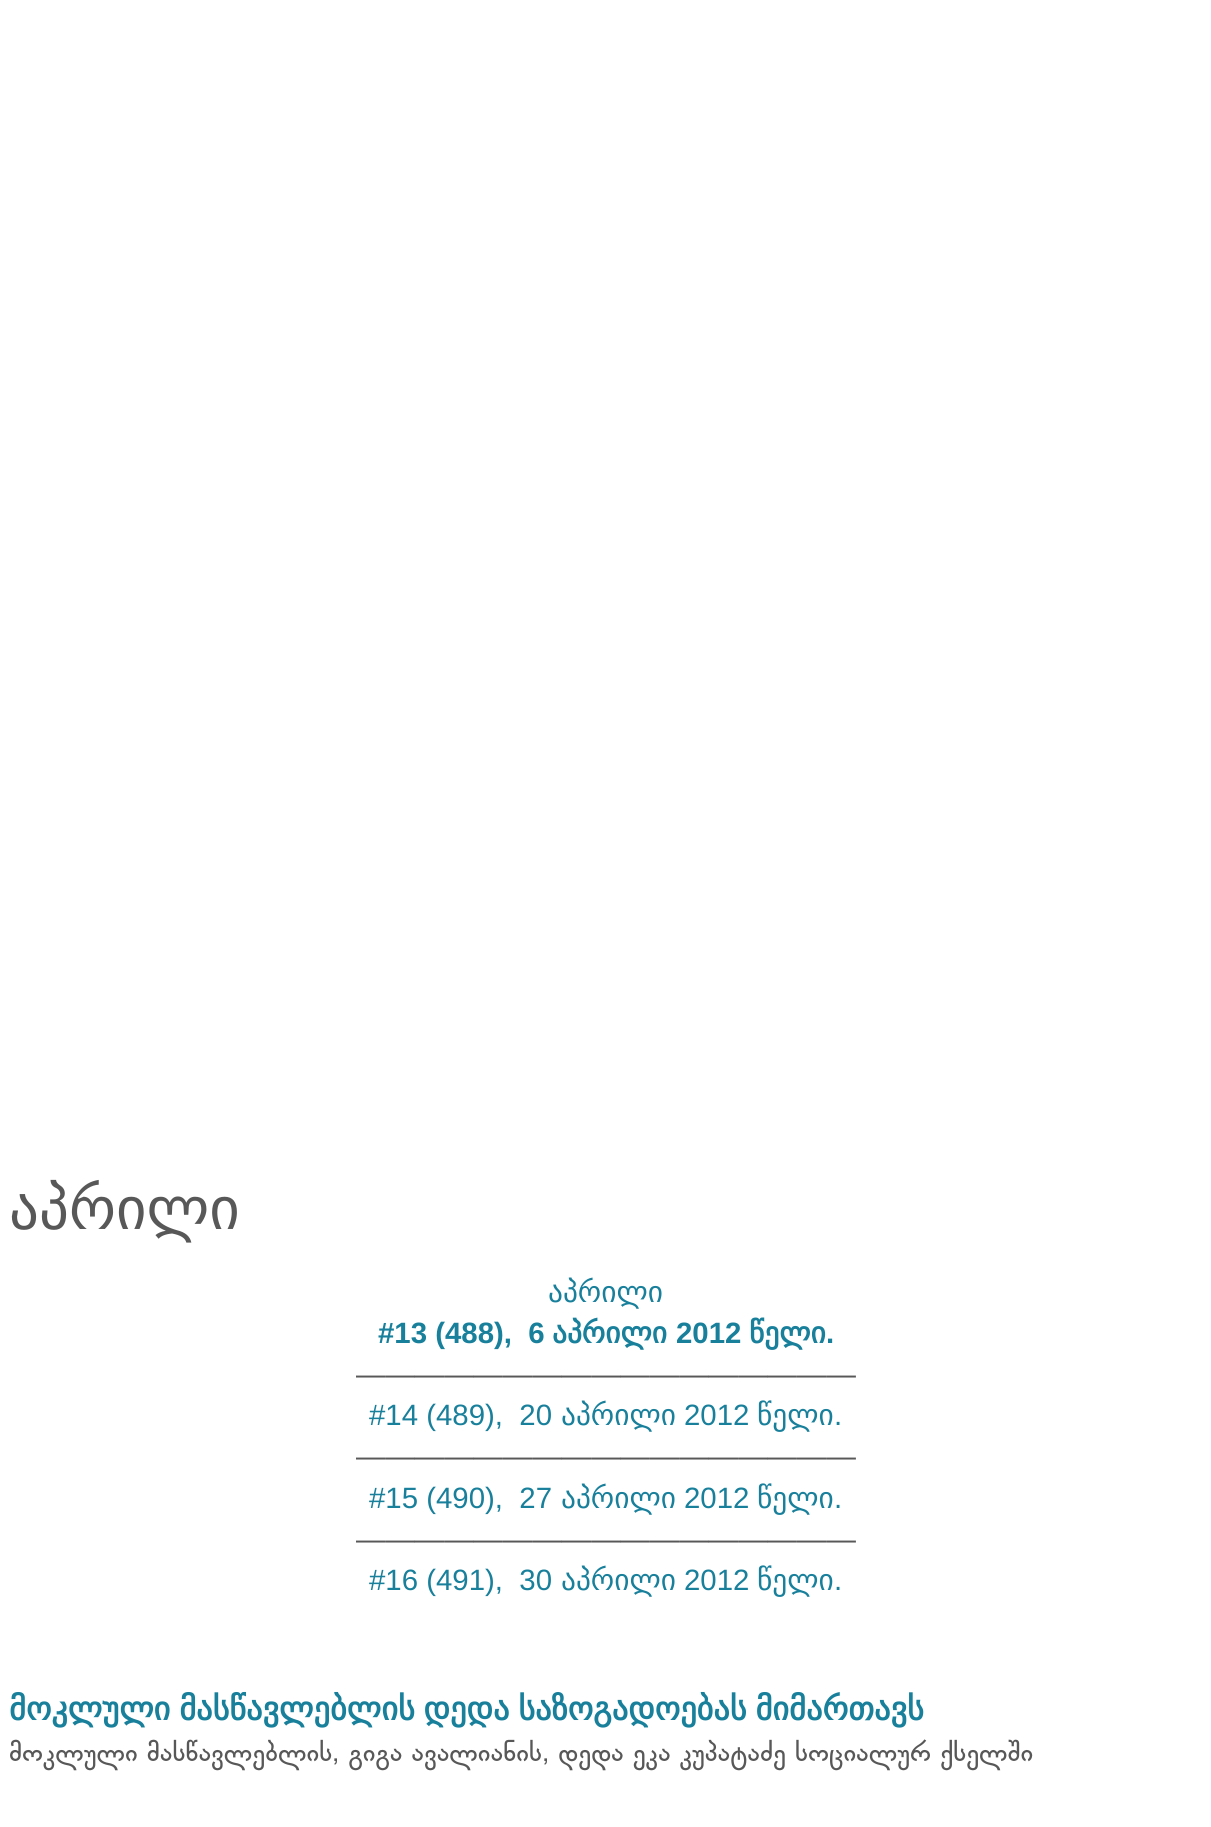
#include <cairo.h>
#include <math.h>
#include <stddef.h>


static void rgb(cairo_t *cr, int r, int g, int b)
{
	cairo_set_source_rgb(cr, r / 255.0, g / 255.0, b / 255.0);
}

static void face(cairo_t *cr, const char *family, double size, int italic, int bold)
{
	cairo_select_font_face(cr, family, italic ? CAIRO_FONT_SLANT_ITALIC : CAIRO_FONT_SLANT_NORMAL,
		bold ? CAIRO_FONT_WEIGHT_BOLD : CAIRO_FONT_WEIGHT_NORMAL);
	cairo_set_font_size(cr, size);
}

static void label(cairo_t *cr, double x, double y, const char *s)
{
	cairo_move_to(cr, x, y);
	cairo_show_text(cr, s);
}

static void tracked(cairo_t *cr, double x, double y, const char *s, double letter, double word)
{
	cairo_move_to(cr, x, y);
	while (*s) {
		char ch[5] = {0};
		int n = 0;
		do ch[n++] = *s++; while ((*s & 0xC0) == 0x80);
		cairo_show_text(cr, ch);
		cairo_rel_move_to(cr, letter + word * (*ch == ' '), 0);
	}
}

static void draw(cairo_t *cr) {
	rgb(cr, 255, 255, 255);
	cairo_paint(cr);
	face(cr, "DejaVu Sans", 59, 0, 0);
	rgb(cr, 88, 88, 88);
	label(cr, 9, 1229, "აპრილი");
	face(cr, "DejaVu Sans", 29.4, 0, 0);
	rgb(cr, 25, 128, 156);
	label(cr, 548, 1302, "აპრილი");
	face(cr, "Liberation Sans", 29.4, 0, 1);
	label(cr, 378, 1343, "#13 (488),  6");
	face(cr, "DejaVu Sans", 29.4, 0, 1);
	label(cr, 552, 1343, "აპრილი");
	face(cr, "Liberation Sans", 29.4, 0, 1);
	label(cr, 676, 1343, "2012");
	face(cr, "DejaVu Sans", 29.4, 0, 1);
	label(cr, 749, 1343, "წელი");
	face(cr, "Liberation Sans", 29.4, 0, 1);
	label(cr, 826, 1343, ".");
	face(cr, "Liberation Sans", 29.4, 0, 0);
	rgb(cr, 88, 88, 88);
	label(cr, 356, 1384, "—————————————————");
	rgb(cr, 25, 128, 156);
	label(cr, 369, 1425, "#14 (489),  20");
	face(cr, "DejaVu Sans", 29.4, 0, 0);
	label(cr, 561, 1425, "აპრილი");
	face(cr, "Liberation Sans", 29.4, 0, 0);
	label(cr, 684, 1425, "2012");
	face(cr, "DejaVu Sans", 29.4, 0, 0);
	label(cr, 757, 1425, "წელი");
	face(cr, "Liberation Sans", 29.4, 0, 0);
	label(cr, 834, 1425, ".");
	rgb(cr, 88, 88, 88);
	label(cr, 356, 1466, "—————————————————");
	rgb(cr, 25, 128, 156);
	label(cr, 369, 1508, "#15 (490),  27");
	face(cr, "DejaVu Sans", 29.4, 0, 0);
	label(cr, 561, 1508, "აპრილი");
	face(cr, "Liberation Sans", 29.4, 0, 0);
	label(cr, 684, 1508, "2012");
	face(cr, "DejaVu Sans", 29.4, 0, 0);
	label(cr, 757, 1508, "წელი");
	face(cr, "Liberation Sans", 29.4, 0, 0);
	label(cr, 834, 1508, ".");
	rgb(cr, 88, 88, 88);
	label(cr, 356, 1549, "—————————————————");
	rgb(cr, 25, 128, 156);
	label(cr, 369, 1590, "#16 (491),  30");
	face(cr, "DejaVu Sans", 29.4, 0, 0);
	label(cr, 561, 1590, "აპრილი");
	face(cr, "Liberation Sans", 29.4, 0, 0);
	label(cr, 684, 1590, "2012");
	face(cr, "DejaVu Sans", 29.4, 0, 0);
	label(cr, 757, 1590, "წელი");
	face(cr, "Liberation Sans", 29.4, 0, 0);
	label(cr, 834, 1590, ".");
	face(cr, "DejaVu Sans", 32.35, 0, 1);
	tracked(cr, 9, 1720, "მოკლული მასწავლებლის დედა საზოგადოებას მიმართავს", 0, -1.5);
	face(cr, "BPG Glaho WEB", 26.45, 0, 0);
	rgb(cr, 88, 88, 88);
	label(cr, 9, 1761, "მოკლული მასწავლებლის, გიგა ავალიანის, დედა ეკა კუპატაძე სოციალურ ქსელში");
}

int main(void) {
	cairo_surface_t *surface = cairo_image_surface_create(CAIRO_FORMAT_RGB24, 1211, 1827);
	cairo_t *cr = cairo_create(surface);
	cairo_font_options_t *options = cairo_font_options_create();
	cairo_font_options_set_hint_metrics(options, CAIRO_HINT_METRICS_OFF);
	cairo_font_options_set_hint_style(options, CAIRO_HINT_STYLE_NONE);
	cairo_set_font_options(cr, options);
	cairo_set_miter_limit(cr, 4);
	draw(cr);
	cairo_surface_write_to_png(surface, "render.png");
	cairo_font_options_destroy(options);
	cairo_destroy(cr);
	cairo_surface_destroy(surface);
	return 0;
}
